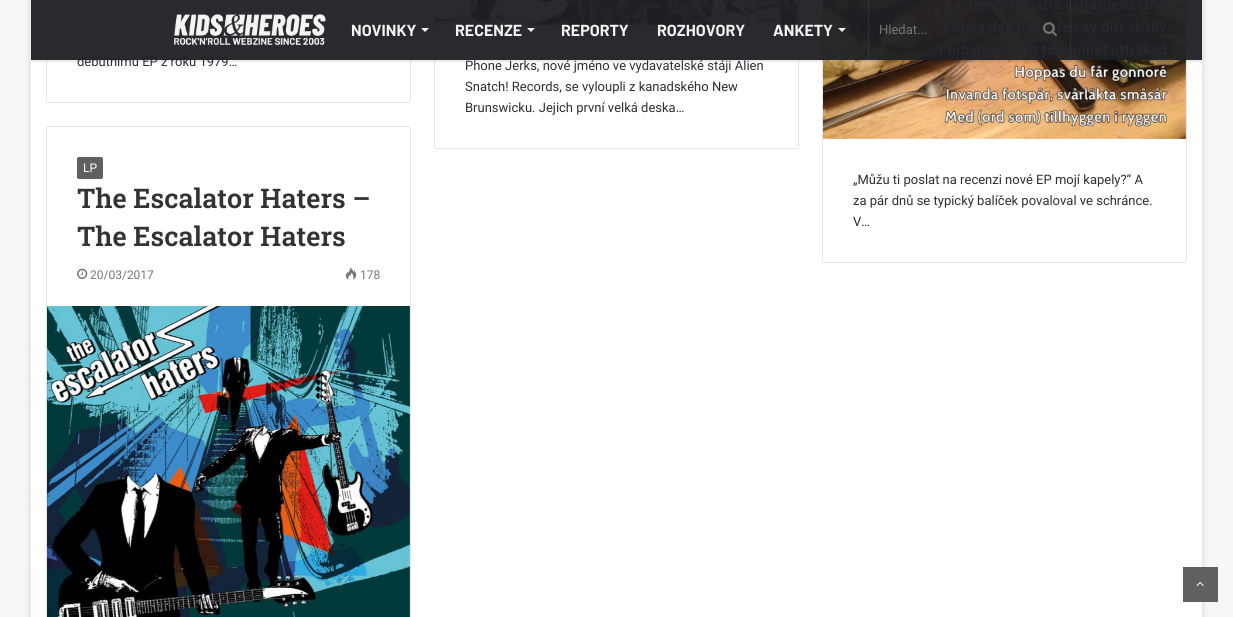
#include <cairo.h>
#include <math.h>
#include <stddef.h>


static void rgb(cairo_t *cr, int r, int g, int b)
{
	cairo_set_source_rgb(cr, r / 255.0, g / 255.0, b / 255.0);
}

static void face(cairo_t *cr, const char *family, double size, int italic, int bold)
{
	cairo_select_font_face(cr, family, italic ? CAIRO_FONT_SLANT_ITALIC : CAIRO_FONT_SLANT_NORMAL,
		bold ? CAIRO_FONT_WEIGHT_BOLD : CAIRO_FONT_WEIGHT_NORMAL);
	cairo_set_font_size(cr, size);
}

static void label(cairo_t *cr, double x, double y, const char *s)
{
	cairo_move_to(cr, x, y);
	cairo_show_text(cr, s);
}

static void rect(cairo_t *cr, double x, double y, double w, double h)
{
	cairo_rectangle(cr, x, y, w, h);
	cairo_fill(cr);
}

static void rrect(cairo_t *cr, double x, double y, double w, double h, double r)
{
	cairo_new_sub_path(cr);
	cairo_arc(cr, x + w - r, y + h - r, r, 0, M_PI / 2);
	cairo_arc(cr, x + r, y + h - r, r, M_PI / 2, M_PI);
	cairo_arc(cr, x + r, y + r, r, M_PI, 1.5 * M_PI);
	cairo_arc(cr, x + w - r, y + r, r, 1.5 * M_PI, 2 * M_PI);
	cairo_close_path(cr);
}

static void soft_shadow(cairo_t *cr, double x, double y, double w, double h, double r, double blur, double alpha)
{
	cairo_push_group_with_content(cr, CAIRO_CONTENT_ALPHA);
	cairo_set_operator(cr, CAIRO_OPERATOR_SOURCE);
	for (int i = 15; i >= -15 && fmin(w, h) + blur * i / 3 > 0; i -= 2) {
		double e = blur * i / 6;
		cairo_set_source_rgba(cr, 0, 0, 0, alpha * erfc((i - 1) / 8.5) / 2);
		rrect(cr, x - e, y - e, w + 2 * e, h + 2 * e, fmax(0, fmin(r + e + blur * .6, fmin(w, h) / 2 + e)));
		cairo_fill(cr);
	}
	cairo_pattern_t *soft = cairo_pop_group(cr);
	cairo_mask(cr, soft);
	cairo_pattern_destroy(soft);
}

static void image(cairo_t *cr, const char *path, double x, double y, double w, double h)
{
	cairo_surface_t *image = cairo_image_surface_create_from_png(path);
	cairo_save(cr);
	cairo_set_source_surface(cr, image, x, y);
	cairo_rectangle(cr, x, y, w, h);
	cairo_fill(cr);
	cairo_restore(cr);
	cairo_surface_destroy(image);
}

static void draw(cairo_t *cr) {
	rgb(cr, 247, 247, 247);
	cairo_paint(cr);
	rgb(cr, 171, 171, 171);
	soft_shadow(cr, 31, -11, 1171, 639, 0, 3.5, 0.5);
	rgb(cr, 255, 255, 255);
	rect(cr, 31, 0, 1171, 617);
	rrect(cr, 46.5, -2.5, 364, 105, 1.5);
	rgb(cr, 230, 230, 230);
	cairo_set_line_width(cr, 1);
	cairo_stroke(cr);
	rrect(cr, 434.5, -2.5, 364, 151, 1.5);
	cairo_stroke(cr);
	image(cr, "image2.png", 435, 0, 363, 25);
	rrect(cr, 822.5, -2.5, 364, 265, 1.5);
	cairo_stroke(cr);
	image(cr, "image6.png", 823, 0, 363, 139);
	cairo_save(cr);
	cairo_rectangle(cr, 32, 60, 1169, 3);
	cairo_clip(cr);
	rgb(cr, 0, 0, 0);
	soft_shadow(cr, 33, 6, 1167, 56, 0, 1, 0.1);
	cairo_restore(cr);
	face(cr, "Roboto", 13, 0, 0);
	rgb(cr, 44, 47, 52);
	label(cr, 77, 66, "debutnímu EP z roku 1979…");
	cairo_set_source_rgba(cr, 0.122, 0.125, 0.141, 0.95);
	rect(cr, 31, 0, 1171, 60);
	image(cr, "image0.png", 174, 14, 152, 32);
	face(cr, "Barlow", 16, 0, 1);
	rgb(cr, 244, 244, 245);
	label(cr, 351, 36, "NOVINKY");
	cairo_new_path(cr);
	cairo_move_to(cr, 421, 28);
	cairo_line_to(cr, 429, 28);
	cairo_line_to(cr, 425, 32);
	cairo_close_path(cr);
	cairo_fill(cr);
	label(cr, 455, 36, "RECENZE");
	cairo_new_path(cr);
	cairo_move_to(cr, 527, 28);
	cairo_line_to(cr, 535, 28);
	cairo_line_to(cr, 531, 32);
	cairo_close_path(cr);
	cairo_fill(cr);
	label(cr, 561, 36, "REPORTY");
	label(cr, 657, 36, "ROZHOVORY");
	label(cr, 773, 36, "ANKETY");
	rgb(cr, 244, 244, 244);
	cairo_new_path(cr);
	cairo_move_to(cr, 838, 28);
	cairo_line_to(cr, 846, 28);
	cairo_line_to(cr, 842, 32);
	cairo_close_path(cr);
	cairo_fill(cr);
	cairo_set_source_rgba(cr, 1, 1, 1, 0.07);
	rect(cr, 1070, 0, 1, 60);
	rect(cr, 868, 0, 1, 60);
	face(cr, "Roboto", 13, 0, 0);
	rgb(cr, 118, 118, 118);
	label(cr, 879, 34, "Hledat...");
	image(cr, "image1.png", 1043, 22, 14, 14);
	rgb(cr, 44, 47, 52);
	label(cr, 465, 70, "Phone Jerks, nové jméno ve vydavatelské stáji Alien");
	label(cr, 465, 91, "Snatch! Records, se vyloupli z kanadského New");
	label(cr, 465, 112, "Brunswicku. Jejich první velká deska…");
	rrect(cr, 46.5, 126.5, 364, 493, 1.5);
	rgb(cr, 230, 230, 230);
	cairo_stroke(cr);
	rgb(cr, 96, 96, 96);
	rrect(cr, 77, 157, 26, 22, 2);
	cairo_fill(cr);
	face(cr, "Roboto", 12, 0, 0);
	rgb(cr, 255, 255, 255);
	label(cr, 83, 172, "LP");
	face(cr, "Roboto Slab SemiBold", 27, 0, 0);
	rgb(cr, 51, 51, 51);
	label(cr, 77, 208, "The Escalator Haters –");
	label(cr, 77, 246, "The Escalator Haters");
	image(cr, "image3.png", 77, 268, 11, 11);
	face(cr, "Roboto", 12, 0, 0);
	rgb(cr, 118, 118, 118);
	label(cr, 90, 279, "20/03/2017");
	image(cr, "image4.png", 345, 267, 12, 13);
	label(cr, 360, 279, "178");
	image(cr, "image5.png", 47, 306, 363, 311);
	face(cr, "Roboto", 13, 0, 0);
	rgb(cr, 44, 47, 52);
	label(cr, 853, 184, "„Můžu ti poslat na recenzi nové EP mojí kapely?“ A");
	label(cr, 853, 205, "za pár dnů se typický balíček povaloval ve schránce.");
	label(cr, 853, 226, "V…");
	rgb(cr, 96, 96, 96);
	rect(cr, 1183, 567, 35, 35);
	image(cr, "image7.png", 1196, 582, 8, 5);
}

int main(void) {
	cairo_surface_t *surface = cairo_image_surface_create(CAIRO_FORMAT_RGB24, 1233, 617);
	cairo_t *cr = cairo_create(surface);
	cairo_font_options_t *options = cairo_font_options_create();
	cairo_font_options_set_hint_metrics(options, CAIRO_HINT_METRICS_OFF);
	cairo_font_options_set_hint_style(options, CAIRO_HINT_STYLE_NONE);
	cairo_set_font_options(cr, options);
	cairo_set_miter_limit(cr, 4);
	draw(cr);
	cairo_surface_write_to_png(surface, "render.png");
	cairo_font_options_destroy(options);
	cairo_destroy(cr);
	cairo_surface_destroy(surface);
	return 0;
}
